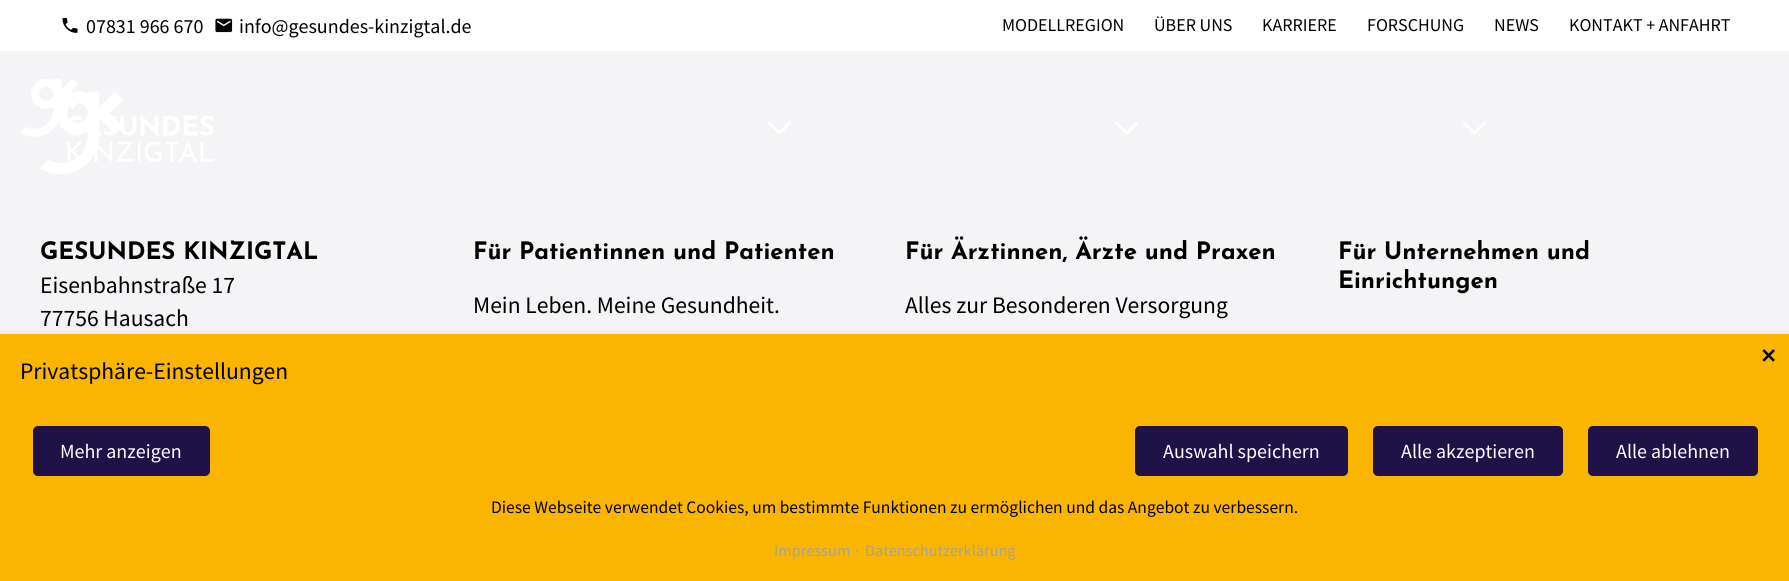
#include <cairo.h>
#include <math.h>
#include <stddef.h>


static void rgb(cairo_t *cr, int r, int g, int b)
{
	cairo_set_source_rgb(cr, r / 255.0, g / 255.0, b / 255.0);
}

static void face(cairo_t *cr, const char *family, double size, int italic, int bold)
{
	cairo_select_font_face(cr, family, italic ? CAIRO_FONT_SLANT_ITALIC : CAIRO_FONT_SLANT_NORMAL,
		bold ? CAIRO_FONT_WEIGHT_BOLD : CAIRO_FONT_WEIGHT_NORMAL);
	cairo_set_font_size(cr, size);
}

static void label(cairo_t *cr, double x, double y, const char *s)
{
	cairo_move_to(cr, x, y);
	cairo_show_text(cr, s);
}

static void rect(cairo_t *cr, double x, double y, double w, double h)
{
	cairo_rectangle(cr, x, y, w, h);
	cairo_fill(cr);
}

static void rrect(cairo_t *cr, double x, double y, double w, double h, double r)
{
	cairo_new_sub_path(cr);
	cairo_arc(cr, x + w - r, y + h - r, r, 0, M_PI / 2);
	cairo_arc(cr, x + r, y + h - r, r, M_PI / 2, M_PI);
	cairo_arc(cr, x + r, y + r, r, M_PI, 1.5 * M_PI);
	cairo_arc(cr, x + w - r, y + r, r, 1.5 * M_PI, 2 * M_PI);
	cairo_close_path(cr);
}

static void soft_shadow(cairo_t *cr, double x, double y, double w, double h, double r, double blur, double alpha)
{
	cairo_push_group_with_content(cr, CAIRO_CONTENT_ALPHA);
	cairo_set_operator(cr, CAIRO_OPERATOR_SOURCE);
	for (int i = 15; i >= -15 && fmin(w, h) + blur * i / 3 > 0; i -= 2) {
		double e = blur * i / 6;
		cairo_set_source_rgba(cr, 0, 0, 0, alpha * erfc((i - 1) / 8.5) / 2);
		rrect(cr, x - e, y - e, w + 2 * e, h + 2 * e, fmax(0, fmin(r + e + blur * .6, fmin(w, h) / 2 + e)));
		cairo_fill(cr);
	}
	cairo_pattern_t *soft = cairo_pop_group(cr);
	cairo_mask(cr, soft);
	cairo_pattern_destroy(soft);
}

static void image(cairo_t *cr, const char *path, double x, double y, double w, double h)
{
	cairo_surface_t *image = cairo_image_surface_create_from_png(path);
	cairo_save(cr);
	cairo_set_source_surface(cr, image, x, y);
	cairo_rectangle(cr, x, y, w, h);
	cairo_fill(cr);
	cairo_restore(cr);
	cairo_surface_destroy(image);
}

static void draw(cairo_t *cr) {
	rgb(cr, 255, 255, 255);
	cairo_paint(cr);
	image(cr, "image0.png", 62, 17, 16, 16);
	face(cr, "Source Sans Pro", 20, 0, 0);
	rgb(cr, 0, 0, 0);
	label(cr, 86, 33, "07831 966 670");
	image(cr, "image1.png", 215, 18, 18, 15);
	label(cr, 239, 33, "info@gesundes-kinzigtal.de");
	face(cr, "Source Sans Pro", 18, 0, 0);
	label(cr, 1002, 31, "MODELLREGION");
	label(cr, 1154, 31, "ÜBER UNS");
	label(cr, 1262, 31, "KARRIERE");
	label(cr, 1367, 31, "FORSCHUNG");
	label(cr, 1494, 31, "NEWS");
	label(cr, 1569, 31, "KONTAKT + ANFAHRT");
	rgb(cr, 244, 243, 245);
	rect(cr, 0, 51, 1789, 283);
	image(cr, "image3.png", 40, 91, 83, 83);
	image(cr, "image2.png", 20, 79, 194, 83);
	cairo_new_path(cr);
	cairo_move_to(cr, 789.5, 123);
	cairo_line_to(cr, 779.5, 133);
	cairo_move_to(cr, 769, 123);
	cairo_line_to(cr, 779.5, 133);
	rgb(cr, 255, 255, 255);
	cairo_set_line_width(cr, 2.6);
	cairo_set_line_cap(cr, CAIRO_LINE_CAP_SQUARE);
	cairo_stroke(cr);
	cairo_new_path(cr);
	cairo_move_to(cr, 1137, 123);
	cairo_line_to(cr, 1127, 133);
	cairo_move_to(cr, 1116.5, 123);
	cairo_line_to(cr, 1127, 133);
	cairo_stroke(cr);
	cairo_new_path(cr);
	cairo_move_to(cr, 1484.5, 123);
	cairo_line_to(cr, 1474.5, 133);
	cairo_move_to(cr, 1464, 123);
	cairo_line_to(cr, 1474.5, 133);
	cairo_stroke(cr);
	face(cr, "Josefin Sans Thin", 24, 0, 0);
	rgb(cr, 0, 0, 0);
	label(cr, 40, 259, "GESUNDES KINZIGTAL");
	face(cr, "Source Sans Pro", 23.6, 0, 0);
	label(cr, 40, 293, "Eisenbahnstraße 17");
	label(cr, 40, 326, "77756 Hausach");
	face(cr, "Josefin Sans Thin", 24, 0, 0);
	label(cr, 473, 259, "Für Patientinnen und Patienten");
	face(cr, "Source Sans Pro", 23.6, 0, 0);
	label(cr, 473, 313, "Mein Leben. Meine Gesundheit.");
	face(cr, "Josefin Sans Thin", 24, 0, 0);
	label(cr, 905, 259, "Für Ärztinnen, Ärzte und Praxen");
	face(cr, "Source Sans Pro", 23.6, 0, 0);
	label(cr, 905, 313, "Alles zur Besonderen Versorgung");
	face(cr, "Josefin Sans Thin", 24, 0, 0);
	label(cr, 1338, 259, "Für Unternehmen und");
	label(cr, 1338, 288, "Einrichtungen");
	rgb(cr, 99, 99, 99);
	soft_shadow(cr, 0, 336, 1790, 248, 0, 5, 0.2);
	rgb(cr, 250, 181, 0);
	rect(cr, 0, 334, 1789, 247);
	face(cr, "DejaVu Sans", 20, 0, 1);
	rgb(cr, 0, 0, 0);
	label(cr, 1760, 363, "✕");
	face(cr, "Source Sans Pro", 23.6, 0, 0);
	label(cr, 20, 379, "Privatsphäre-Einstellungen");
	rgb(cr, 30, 18, 71);
	rrect(cr, 33, 426, 177, 50, 5);
	cairo_fill(cr);
	face(cr, "Source Sans Pro", 20, 0, 0);
	rgb(cr, 255, 255, 255);
	label(cr, 60, 458, "Mehr anzeigen");
	rgb(cr, 30, 18, 71);
	rrect(cr, 1135, 426, 213, 50, 5);
	cairo_fill(cr);
	rgb(cr, 255, 255, 255);
	label(cr, 1163, 458, "Auswahl speichern");
	rgb(cr, 30, 18, 71);
	rrect(cr, 1373, 426, 190, 50, 5);
	cairo_fill(cr);
	rgb(cr, 255, 255, 255);
	label(cr, 1401, 458, "Alle akzeptieren");
	rgb(cr, 30, 18, 71);
	rrect(cr, 1588, 426, 170, 50, 5);
	cairo_fill(cr);
	rgb(cr, 255, 255, 255);
	label(cr, 1616, 458, "Alle ablehnen");
	face(cr, "Source Sans Pro", 17.5, 0, 0);
	rgb(cr, 0, 0, 0);
	label(cr, 491, 513, "Diese Webseite verwendet Cookies, um bestimmte Funktionen zu ermöglichen und das Angebot zu verbessern.");
	face(cr, "Source Sans Pro", 16.25, 0, 0);
	rgb(cr, 162, 162, 162);
	label(cr, 774, 556, "Impressum");
	label(cr, 855, 556, "·");
	label(cr, 865, 556, "Datenschutzerklärung");
}

int main(void) {
	cairo_surface_t *surface = cairo_image_surface_create(CAIRO_FORMAT_RGB24, 1789, 581);
	cairo_t *cr = cairo_create(surface);
	cairo_font_options_t *options = cairo_font_options_create();
	cairo_font_options_set_hint_metrics(options, CAIRO_HINT_METRICS_OFF);
	cairo_font_options_set_hint_style(options, CAIRO_HINT_STYLE_NONE);
	cairo_set_font_options(cr, options);
	cairo_set_miter_limit(cr, 4);
	draw(cr);
	cairo_surface_write_to_png(surface, "render.png");
	cairo_font_options_destroy(options);
	cairo_destroy(cr);
	cairo_surface_destroy(surface);
	return 0;
}
